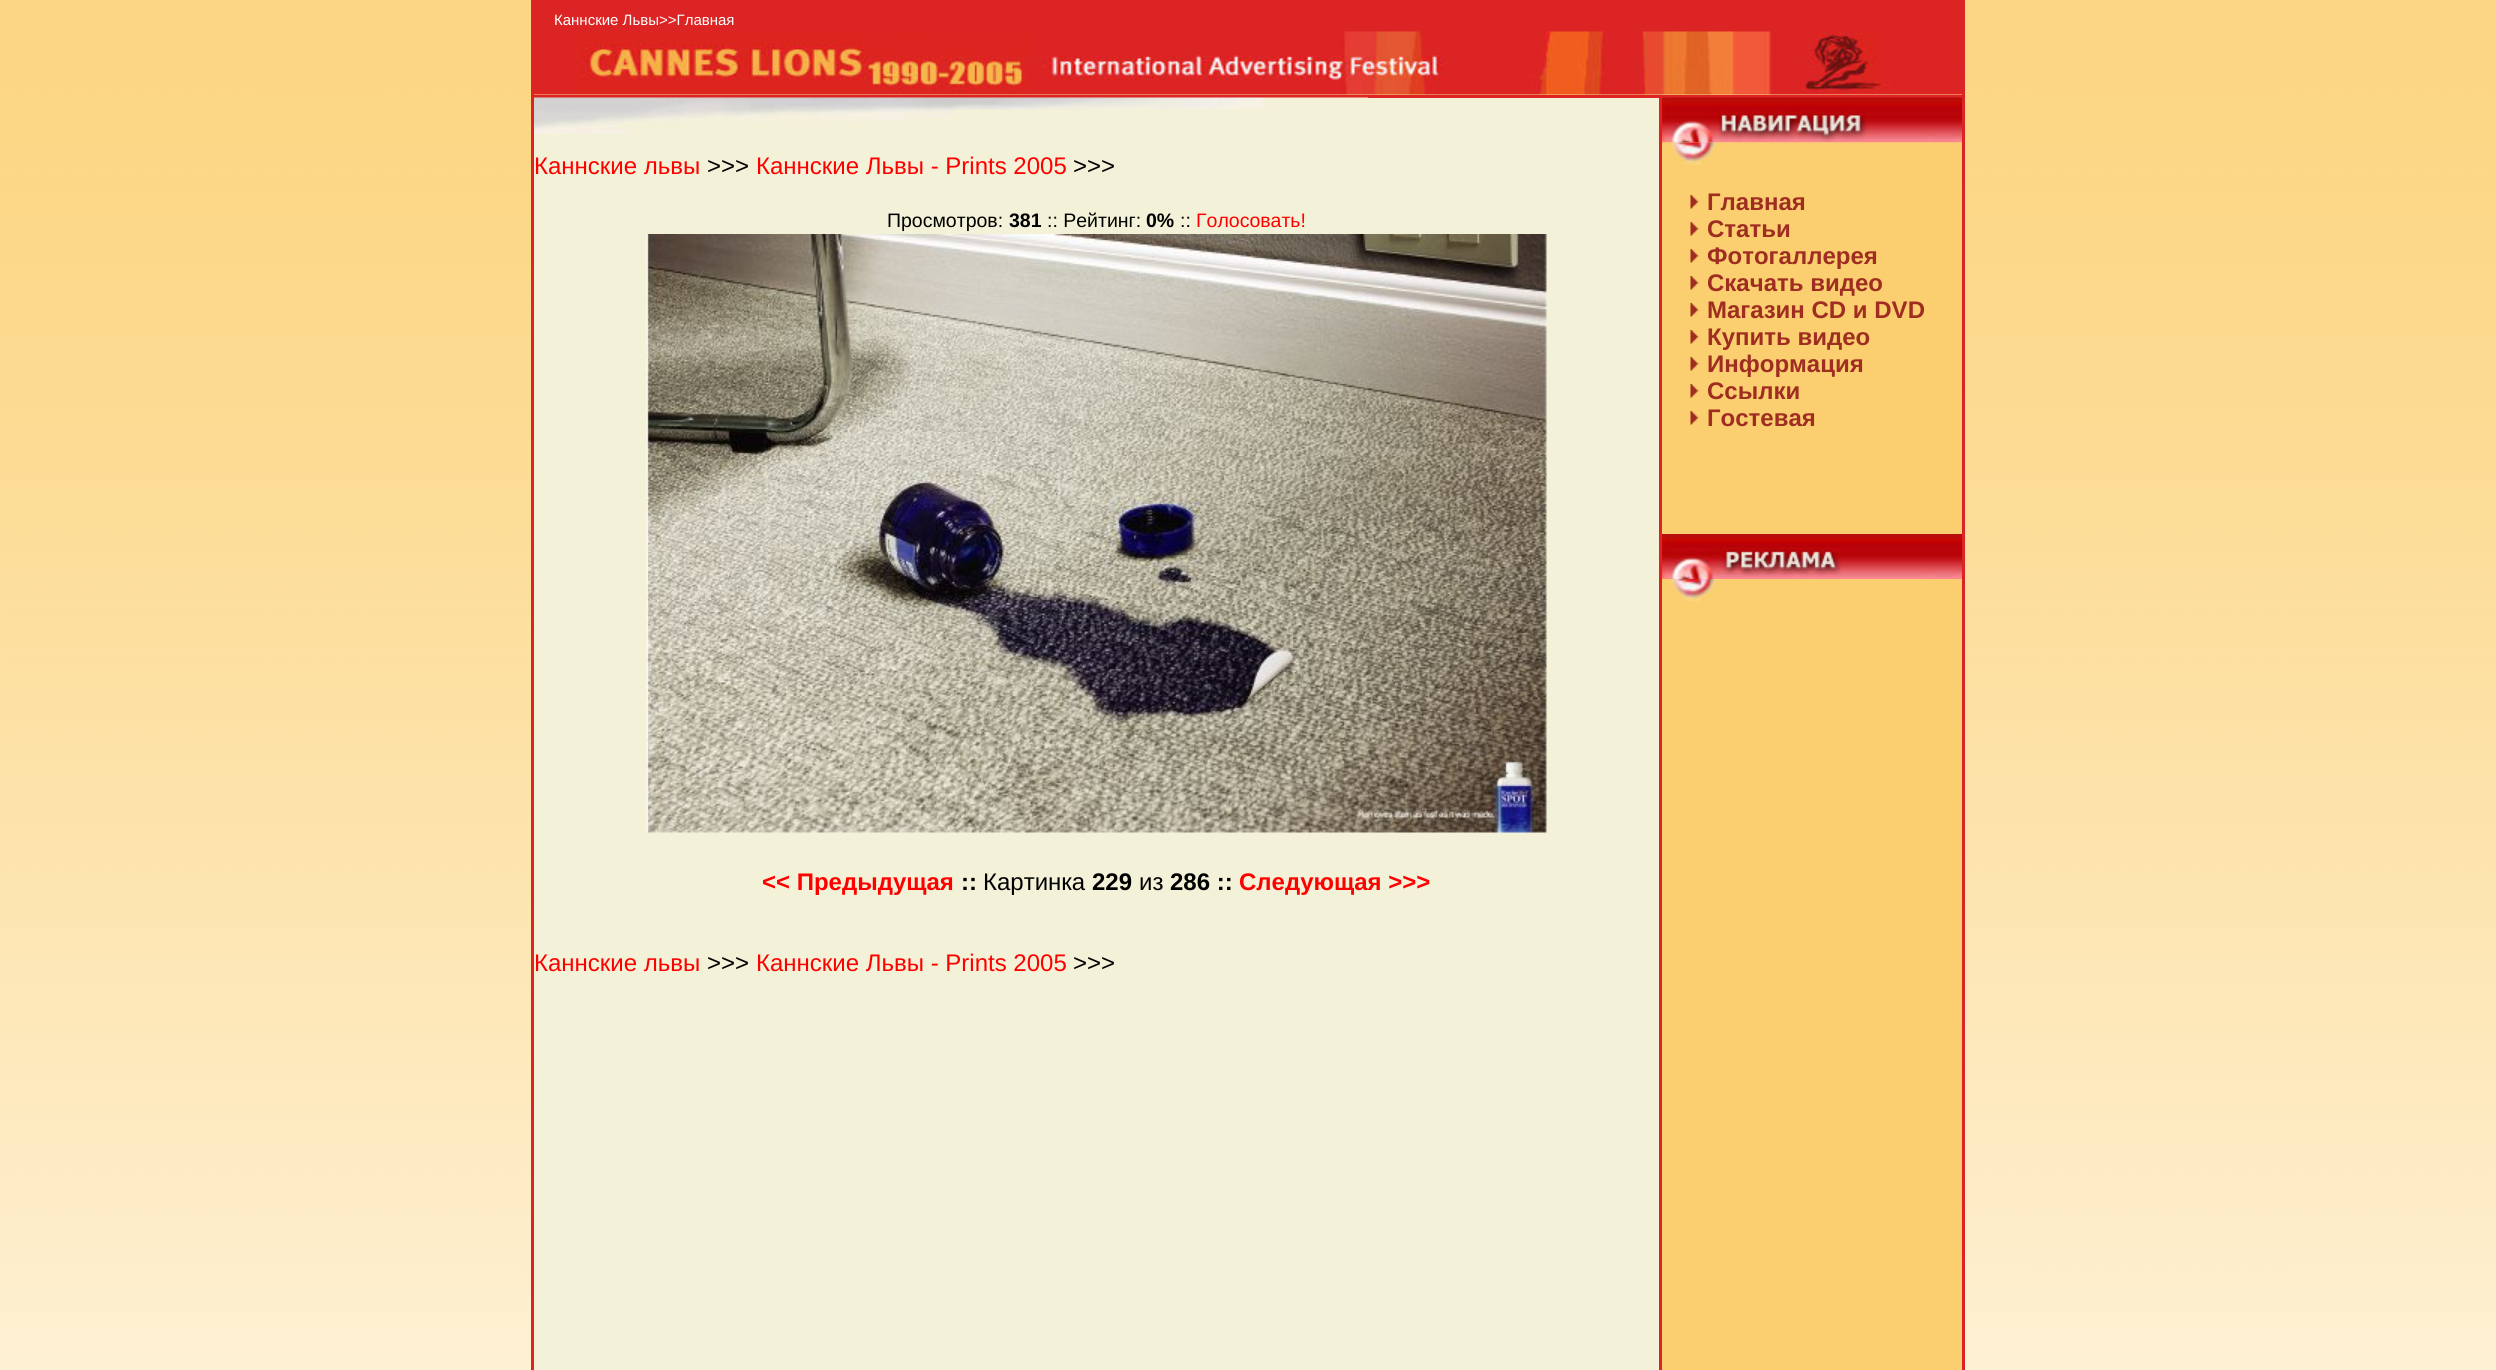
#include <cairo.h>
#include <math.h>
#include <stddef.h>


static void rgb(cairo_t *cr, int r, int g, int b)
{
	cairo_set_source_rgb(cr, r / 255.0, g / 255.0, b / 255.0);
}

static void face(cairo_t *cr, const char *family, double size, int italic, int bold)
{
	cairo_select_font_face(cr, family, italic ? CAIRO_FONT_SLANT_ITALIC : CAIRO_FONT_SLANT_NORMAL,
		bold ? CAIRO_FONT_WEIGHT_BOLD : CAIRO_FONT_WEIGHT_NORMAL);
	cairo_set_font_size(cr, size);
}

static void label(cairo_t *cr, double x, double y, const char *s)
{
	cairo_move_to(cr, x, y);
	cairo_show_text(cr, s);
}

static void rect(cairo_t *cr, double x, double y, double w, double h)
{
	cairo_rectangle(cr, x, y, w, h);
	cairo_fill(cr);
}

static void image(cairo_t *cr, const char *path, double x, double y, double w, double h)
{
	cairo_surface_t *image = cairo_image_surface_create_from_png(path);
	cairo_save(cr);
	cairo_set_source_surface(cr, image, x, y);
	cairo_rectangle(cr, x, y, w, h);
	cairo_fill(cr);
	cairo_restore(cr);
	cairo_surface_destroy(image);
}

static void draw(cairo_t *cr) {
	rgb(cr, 255, 255, 255);
	cairo_paint(cr);
	image(cr, "image0.png", 0, 0, 2496, 1370);
	rgb(cr, 220, 36, 36);
	rect(cr, 531, 0, 1434, 3);
	rect(cr, 1962, 0, 3, 95);
	rect(cr, 531, 0, 3, 95);
	rect(cr, 534, 3, 1428, 29);
	face(cr, "Liberation Sans", 15, 0, 0);
	rgb(cr, 255, 255, 255);
	label(cr, 554, 25, "Каннские Львы>>Главная");
	image(cr, "image1.png", 534, 31, 1428, 64);
	rgb(cr, 220, 36, 36);
	rect(cr, 531, 95, 1434, 3);
	rect(cr, 1962, 95, 3, 1275);
	rect(cr, 531, 95, 3, 1275);
	rgb(cr, 243, 242, 216);
	rect(cr, 534, 98, 1125, 1272);
	image(cr, "image2.png", 534, 97, 834, 37);
	face(cr, "Liberation Sans", 24, 0, 0);
	rgb(cr, 255, 0, 0);
	label(cr, 534, 174, "Каннские львы");
	rgb(cr, 0, 0, 0);
	label(cr, 707, 174, ">>>");
	rgb(cr, 255, 0, 0);
	label(cr, 756, 174, "Каннские Львы - Prints 2005");
	rgb(cr, 0, 0, 0);
	label(cr, 1073, 174, ">>>");
	face(cr, "Liberation Sans", 19.5, 0, 0);
	label(cr, 887, 227, "Просмотров:");
	face(cr, "Liberation Sans", 19.5, 0, 1);
	label(cr, 1009, 227, "381");
	face(cr, "Liberation Sans", 19.5, 0, 0);
	label(cr, 1047, 227, ":: Рейтинг:");
	face(cr, "Liberation Sans", 19.5, 0, 1);
	label(cr, 1146, 227, "0%");
	face(cr, "Liberation Sans", 19.5, 0, 0);
	label(cr, 1180, 227, "::");
	rgb(cr, 255, 0, 0);
	label(cr, 1196, 227, "Голосовать!");
	image(cr, "image3.png", 646, 234, 901, 599);
	face(cr, "Liberation Sans", 24, 0, 1);
	label(cr, 762, 890, "<< Предыдущая");
	rgb(cr, 0, 0, 0);
	label(cr, 961, 890, "::");
	face(cr, "Liberation Sans", 24, 0, 0);
	label(cr, 983, 890, "Картинка");
	face(cr, "Liberation Sans", 24, 0, 1);
	label(cr, 1092, 890, "229");
	face(cr, "Liberation Sans", 24, 0, 0);
	label(cr, 1139, 890, "из");
	face(cr, "Liberation Sans", 24, 0, 1);
	label(cr, 1170, 890, "286 ::");
	rgb(cr, 255, 0, 0);
	label(cr, 1239, 890, "Следующая >>>");
	face(cr, "Liberation Sans", 24, 0, 0);
	label(cr, 534, 971, "Каннские львы");
	rgb(cr, 0, 0, 0);
	label(cr, 707, 971, ">>>");
	rgb(cr, 255, 0, 0);
	label(cr, 756, 971, "Каннские Львы - Prints 2005");
	rgb(cr, 0, 0, 0);
	label(cr, 1073, 971, ">>>");
	rgb(cr, 220, 36, 36);
	rect(cr, 1659, 98, 3, 1272);
	rgb(cr, 251, 207, 111);
	rect(cr, 1662, 142, 300, 1228);
	image(cr, "image4.png", 1662, 97, 300, 46);
	image(cr, "image5.png", 1662, 142, 300, 23);
	image(cr, "image6.png", 1690, 195, 9, 14);
	face(cr, "Liberation Sans", 24, 0, 1);
	rgb(cr, 159, 45, 33);
	label(cr, 1707, 210, "Главная");
	image(cr, "image6.png", 1690, 222, 9, 14);
	label(cr, 1707, 237, "Статьи");
	image(cr, "image6.png", 1690, 249, 9, 14);
	label(cr, 1707, 264, "Фотогаллерея");
	image(cr, "image6.png", 1690, 276, 9, 14);
	label(cr, 1707, 291, "Скачать видео");
	image(cr, "image6.png", 1690, 303, 9, 14);
	label(cr, 1707, 318, "Магазин CD и DVD");
	image(cr, "image6.png", 1690, 330, 9, 14);
	label(cr, 1707, 345, "Купить видео");
	image(cr, "image6.png", 1690, 357, 9, 14);
	label(cr, 1707, 372, "Информация");
	image(cr, "image6.png", 1690, 384, 9, 14);
	label(cr, 1707, 399, "Ссылки");
	image(cr, "image6.png", 1690, 411, 9, 14);
	label(cr, 1707, 426, "Гостевая");
	image(cr, "image7.png", 1662, 534, 300, 45);
	image(cr, "image8.png", 1662, 579, 55, 23);
}

int main(void) {
	cairo_surface_t *surface = cairo_image_surface_create(CAIRO_FORMAT_RGB24, 2496, 1370);
	cairo_t *cr = cairo_create(surface);
	cairo_font_options_t *options = cairo_font_options_create();
	cairo_font_options_set_hint_metrics(options, CAIRO_HINT_METRICS_OFF);
	cairo_font_options_set_hint_style(options, CAIRO_HINT_STYLE_NONE);
	cairo_set_font_options(cr, options);
	cairo_set_miter_limit(cr, 4);
	draw(cr);
	cairo_surface_write_to_png(surface, "render.png");
	cairo_font_options_destroy(options);
	cairo_destroy(cr);
	cairo_surface_destroy(surface);
	return 0;
}
